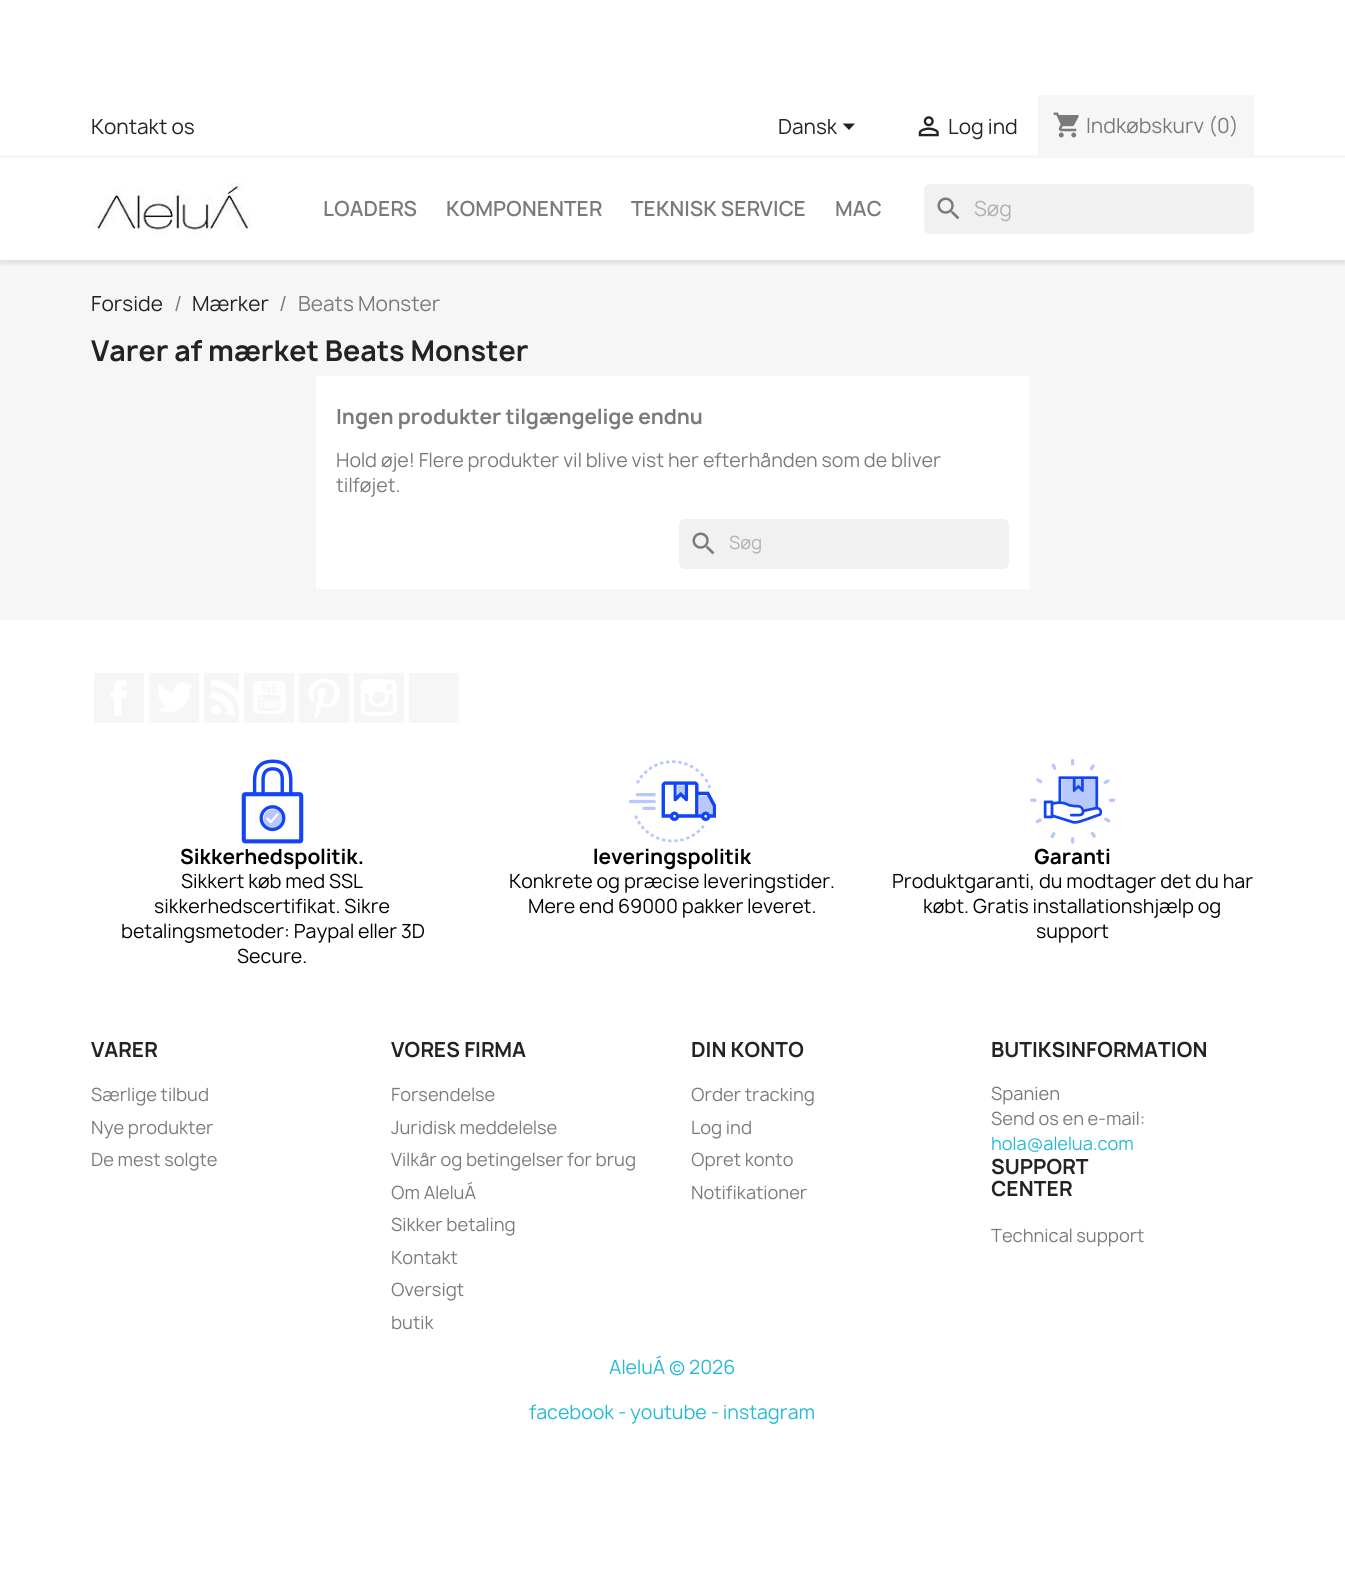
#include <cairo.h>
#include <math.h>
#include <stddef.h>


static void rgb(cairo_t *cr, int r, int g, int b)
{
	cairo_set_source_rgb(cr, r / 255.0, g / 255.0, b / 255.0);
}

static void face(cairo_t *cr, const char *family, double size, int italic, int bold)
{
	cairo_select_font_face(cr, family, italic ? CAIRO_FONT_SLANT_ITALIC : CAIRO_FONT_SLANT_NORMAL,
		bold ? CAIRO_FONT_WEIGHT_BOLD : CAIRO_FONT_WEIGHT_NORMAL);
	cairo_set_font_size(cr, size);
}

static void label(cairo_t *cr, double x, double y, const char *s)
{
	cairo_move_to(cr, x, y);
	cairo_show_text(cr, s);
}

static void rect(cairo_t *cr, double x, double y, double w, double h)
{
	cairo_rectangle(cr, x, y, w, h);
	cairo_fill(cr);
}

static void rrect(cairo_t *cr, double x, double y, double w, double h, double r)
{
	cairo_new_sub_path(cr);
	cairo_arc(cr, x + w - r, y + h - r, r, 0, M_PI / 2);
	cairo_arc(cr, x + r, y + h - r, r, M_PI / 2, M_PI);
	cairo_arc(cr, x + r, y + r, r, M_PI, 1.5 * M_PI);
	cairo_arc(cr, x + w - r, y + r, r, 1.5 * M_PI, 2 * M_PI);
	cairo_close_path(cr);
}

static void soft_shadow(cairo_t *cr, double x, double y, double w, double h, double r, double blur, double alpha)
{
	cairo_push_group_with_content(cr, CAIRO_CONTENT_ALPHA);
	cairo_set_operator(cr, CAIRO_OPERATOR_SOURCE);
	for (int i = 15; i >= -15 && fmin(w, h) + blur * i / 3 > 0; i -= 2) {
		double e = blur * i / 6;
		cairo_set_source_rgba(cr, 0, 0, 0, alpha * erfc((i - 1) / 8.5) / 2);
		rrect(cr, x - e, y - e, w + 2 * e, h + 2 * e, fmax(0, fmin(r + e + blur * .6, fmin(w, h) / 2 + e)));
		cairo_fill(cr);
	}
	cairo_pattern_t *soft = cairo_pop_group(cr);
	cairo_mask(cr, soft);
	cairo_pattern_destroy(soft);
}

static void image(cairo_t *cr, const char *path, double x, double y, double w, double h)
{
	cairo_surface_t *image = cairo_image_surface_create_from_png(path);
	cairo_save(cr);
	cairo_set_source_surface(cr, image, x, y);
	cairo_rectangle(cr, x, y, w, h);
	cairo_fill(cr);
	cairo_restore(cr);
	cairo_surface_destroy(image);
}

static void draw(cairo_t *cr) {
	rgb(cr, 255, 255, 255);
	cairo_paint(cr);
	rgb(cr, 246, 246, 246);
	rect(cr, 0, 260, 1345, 360);
	cairo_save(cr);
	cairo_rectangle(cr, 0, 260, 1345, 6);
	cairo_clip(cr);
	rgb(cr, 0, 0, 0);
	soft_shadow(cr, 0, 3, 1345, 260, 0, 3, 0.11);
	cairo_restore(cr);
	rect(cr, 0, 155, 1345, 3);
	face(cr, "Manrope", 20, 0, 0);
	rgb(cr, 35, 35, 35);
	label(cr, 91, 134, "Kontakt os");
	label(cr, 778, 134, "Dansk");
	cairo_new_path(cr);
	cairo_move_to(cr, 842.5, 123.5);
	cairo_line_to(cr, 855, 123.5);
	cairo_line_to(cr, 849, 130);
	cairo_close_path(cr);
	cairo_fill(cr);
	image(cr, "image0.png", 918, 116, 21, 21);
	label(cr, 948, 134, "Log ind");
	rgb(cr, 246, 246, 246);
	rect(cr, 1038, 95, 216, 60);
	image(cr, "image1.png", 1053, 112, 26, 26);
	rgb(cr, 122, 122, 122);
	label(cr, 1086, 133, "Indkøbskurv (0)");
	image(cr, "image2.png", 91, 182, 160, 53);
	face(cr, "Manrope SemiBold", 20, 0, 0);
	label(cr, 323, 216, "LOADERS");
	label(cr, 446, 216, "KOMPONENTER");
	label(cr, 631, 216, "TEKNISK SERVICE");
	label(cr, 835, 216, "MAC");
	rgb(cr, 241, 241, 241);
	rrect(cr, 924, 184, 330, 50, 6);
	cairo_fill(cr);
	image(cr, "image3.png", 937, 197, 23, 23);
	face(cr, "Manrope", 20, 0, 0);
	rgb(cr, 177, 177, 177);
	label(cr, 974, 216, "Søg");
	rgb(cr, 35, 35, 35);
	label(cr, 91, 311, "Forside");
	rgb(cr, 122, 122, 122);
	label(cr, 174, 311, "/");
	rgb(cr, 35, 35, 35);
	label(cr, 192, 311, "Mærker");
	rgb(cr, 122, 122, 122);
	label(cr, 279, 311, "/");
	label(cr, 298, 311, "Beats Monster");
	face(cr, "Manrope", 27.5, 0, 1);
	rgb(cr, 35, 35, 35);
	label(cr, 91, 361, "Varer af mærket Beats Monster");
	rgb(cr, 255, 255, 255);
	rect(cr, 316, 376, 713, 213);
	face(cr, "Manrope", 20, 0, 1);
	rgb(cr, 122, 122, 122);
	label(cr, 336, 424, "Ingen produkter tilgængelige endnu");
	face(cr, "Manrope", 18.75, 0, 0);
	label(cr, 336, 467, "Hold øje! Flere produkter vil blive vist her efterhånden som de bliver");
	label(cr, 336, 492, "tilføjet.");
	rgb(cr, 241, 241, 241);
	rrect(cr, 679, 519, 330, 50, 6);
	cairo_fill(cr);
	image(cr, "image3.png", 692, 532, 23, 23);
	face(cr, "Manrope", 17.5, 0, 0);
	rgb(cr, 177, 177, 177);
	label(cr, 729, 549, "Søg");
	rgb(cr, 246, 246, 246);
	rect(cr, 94, 673, 50, 50);
	image(cr, "image4.png", 110, 680, 17, 36);
	rect(cr, 149, 673, 50, 50);
	image(cr, "image5.png", 157, 682, 36, 30);
	rect(cr, 204, 673, 35, 50);
	image(cr, "image6.png", 211, 680, 28, 35);
	rect(cr, 244, 673, 50, 50);
	image(cr, "image7.png", 253, 681, 33, 33);
	rect(cr, 299, 673, 50, 50);
	image(cr, "image8.png", 308, 679, 32, 40);
	rect(cr, 354, 673, 50, 50);
	image(cr, "image9.png", 361, 679, 36, 37);
	rect(cr, 409, 673, 50, 50);
	image(cr, "image10.png", 241, 759, 63, 85);
	face(cr, "Manrope", 20, 0, 1);
	rgb(cr, 0, 0, 0);
	label(cr, 180, 864, "Sikkerhedspolitik.");
	face(cr, "Manrope", 18.75, 0, 0);
	label(cr, 181, 888, "Sikkert køb med SSL");
	label(cr, 154, 913, "sikkerhedscertifikat. Sikre");
	label(cr, 121, 938, "betalingsmetoder: Paypal eller 3D");
	label(cr, 237, 963, "Secure.");
	image(cr, "image11.png", 629, 760, 87, 83);
	face(cr, "Manrope", 20, 0, 1);
	label(cr, 593, 864, "leveringspolitik");
	face(cr, "Manrope", 18.75, 0, 0);
	label(cr, 509, 888, "Konkrete og præcise leveringstider.");
	label(cr, 528, 913, "Mere end 69000 pakker leveret.");
	image(cr, "image12.png", 1030, 758, 86, 86);
	face(cr, "Manrope", 20, 0, 1);
	label(cr, 1034, 864, "Garanti");
	face(cr, "Manrope", 18.75, 0, 0);
	label(cr, 892, 888, "Produktgaranti, du modtager det du har");
	label(cr, 923, 913, "købt. Gratis installationshjælp og");
	label(cr, 1036, 938, "support");
	face(cr, "Manrope", 20, 0, 1);
	rgb(cr, 35, 35, 35);
	label(cr, 91, 1057, "VARER");
	face(cr, "Manrope", 17.5, 0, 0);
	rgb(cr, 122, 122, 122);
	label(cr, 91, 1101, "Særlige tilbud");
	label(cr, 91, 1134, "Nye produkter");
	label(cr, 91, 1166, "De mest solgte");
	face(cr, "Manrope", 20, 0, 1);
	rgb(cr, 35, 35, 35);
	label(cr, 391, 1057, "VORES FIRMA");
	face(cr, "Manrope", 17.5, 0, 0);
	rgb(cr, 122, 122, 122);
	label(cr, 391, 1101, "Forsendelse");
	label(cr, 391, 1134, "Juridisk meddelelse");
	label(cr, 391, 1166, "Vilkår og betingelser for brug");
	label(cr, 391, 1199, "Om AleluÁ");
	label(cr, 391, 1231, "Sikker betaling");
	label(cr, 391, 1264, "Kontakt");
	label(cr, 391, 1296, "Oversigt");
	label(cr, 391, 1329, "butik");
	face(cr, "Manrope", 20, 0, 1);
	rgb(cr, 35, 35, 35);
	label(cr, 691, 1057, "DIN KONTO");
	face(cr, "Manrope", 17.5, 0, 0);
	rgb(cr, 122, 122, 122);
	label(cr, 691, 1101, "Order tracking");
	label(cr, 691, 1134, "Log ind");
	label(cr, 691, 1166, "Opret konto");
	label(cr, 691, 1199, "Notifikationer");
	face(cr, "Manrope", 20, 0, 1);
	rgb(cr, 35, 35, 35);
	label(cr, 991, 1057, "BUTIKSINFORMATION");
	face(cr, "Manrope", 17.5, 0, 0);
	rgb(cr, 122, 122, 122);
	label(cr, 991, 1100, "Spanien");
	label(cr, 991, 1125, "Send os en e-mail:");
	rgb(cr, 36, 185, 215);
	label(cr, 991, 1150, "hola@alelua.com");
	face(cr, "Manrope", 20, 0, 1);
	rgb(cr, 35, 35, 35);
	label(cr, 991, 1174, "SUPPORT");
	label(cr, 991, 1196, "CENTER");
	face(cr, "Manrope", 17.5, 0, 0);
	rgb(cr, 122, 122, 122);
	label(cr, 991, 1242, "Technical support");
	face(cr, "Manrope", 18.75, 0, 0);
	rgb(cr, 36, 185, 215);
	label(cr, 609, 1374, "AleluÁ © 2026");
	label(cr, 529, 1419, "facebook - youtube - instagram");
}

int main(void) {
	cairo_surface_t *surface = cairo_image_surface_create(CAIRO_FORMAT_RGB24, 1345, 1589);
	cairo_t *cr = cairo_create(surface);
	cairo_font_options_t *options = cairo_font_options_create();
	cairo_font_options_set_hint_metrics(options, CAIRO_HINT_METRICS_OFF);
	cairo_font_options_set_hint_style(options, CAIRO_HINT_STYLE_NONE);
	cairo_set_font_options(cr, options);
	cairo_set_miter_limit(cr, 4);
	draw(cr);
	cairo_surface_write_to_png(surface, "render.png");
	cairo_font_options_destroy(options);
	cairo_destroy(cr);
	cairo_surface_destroy(surface);
	return 0;
}
